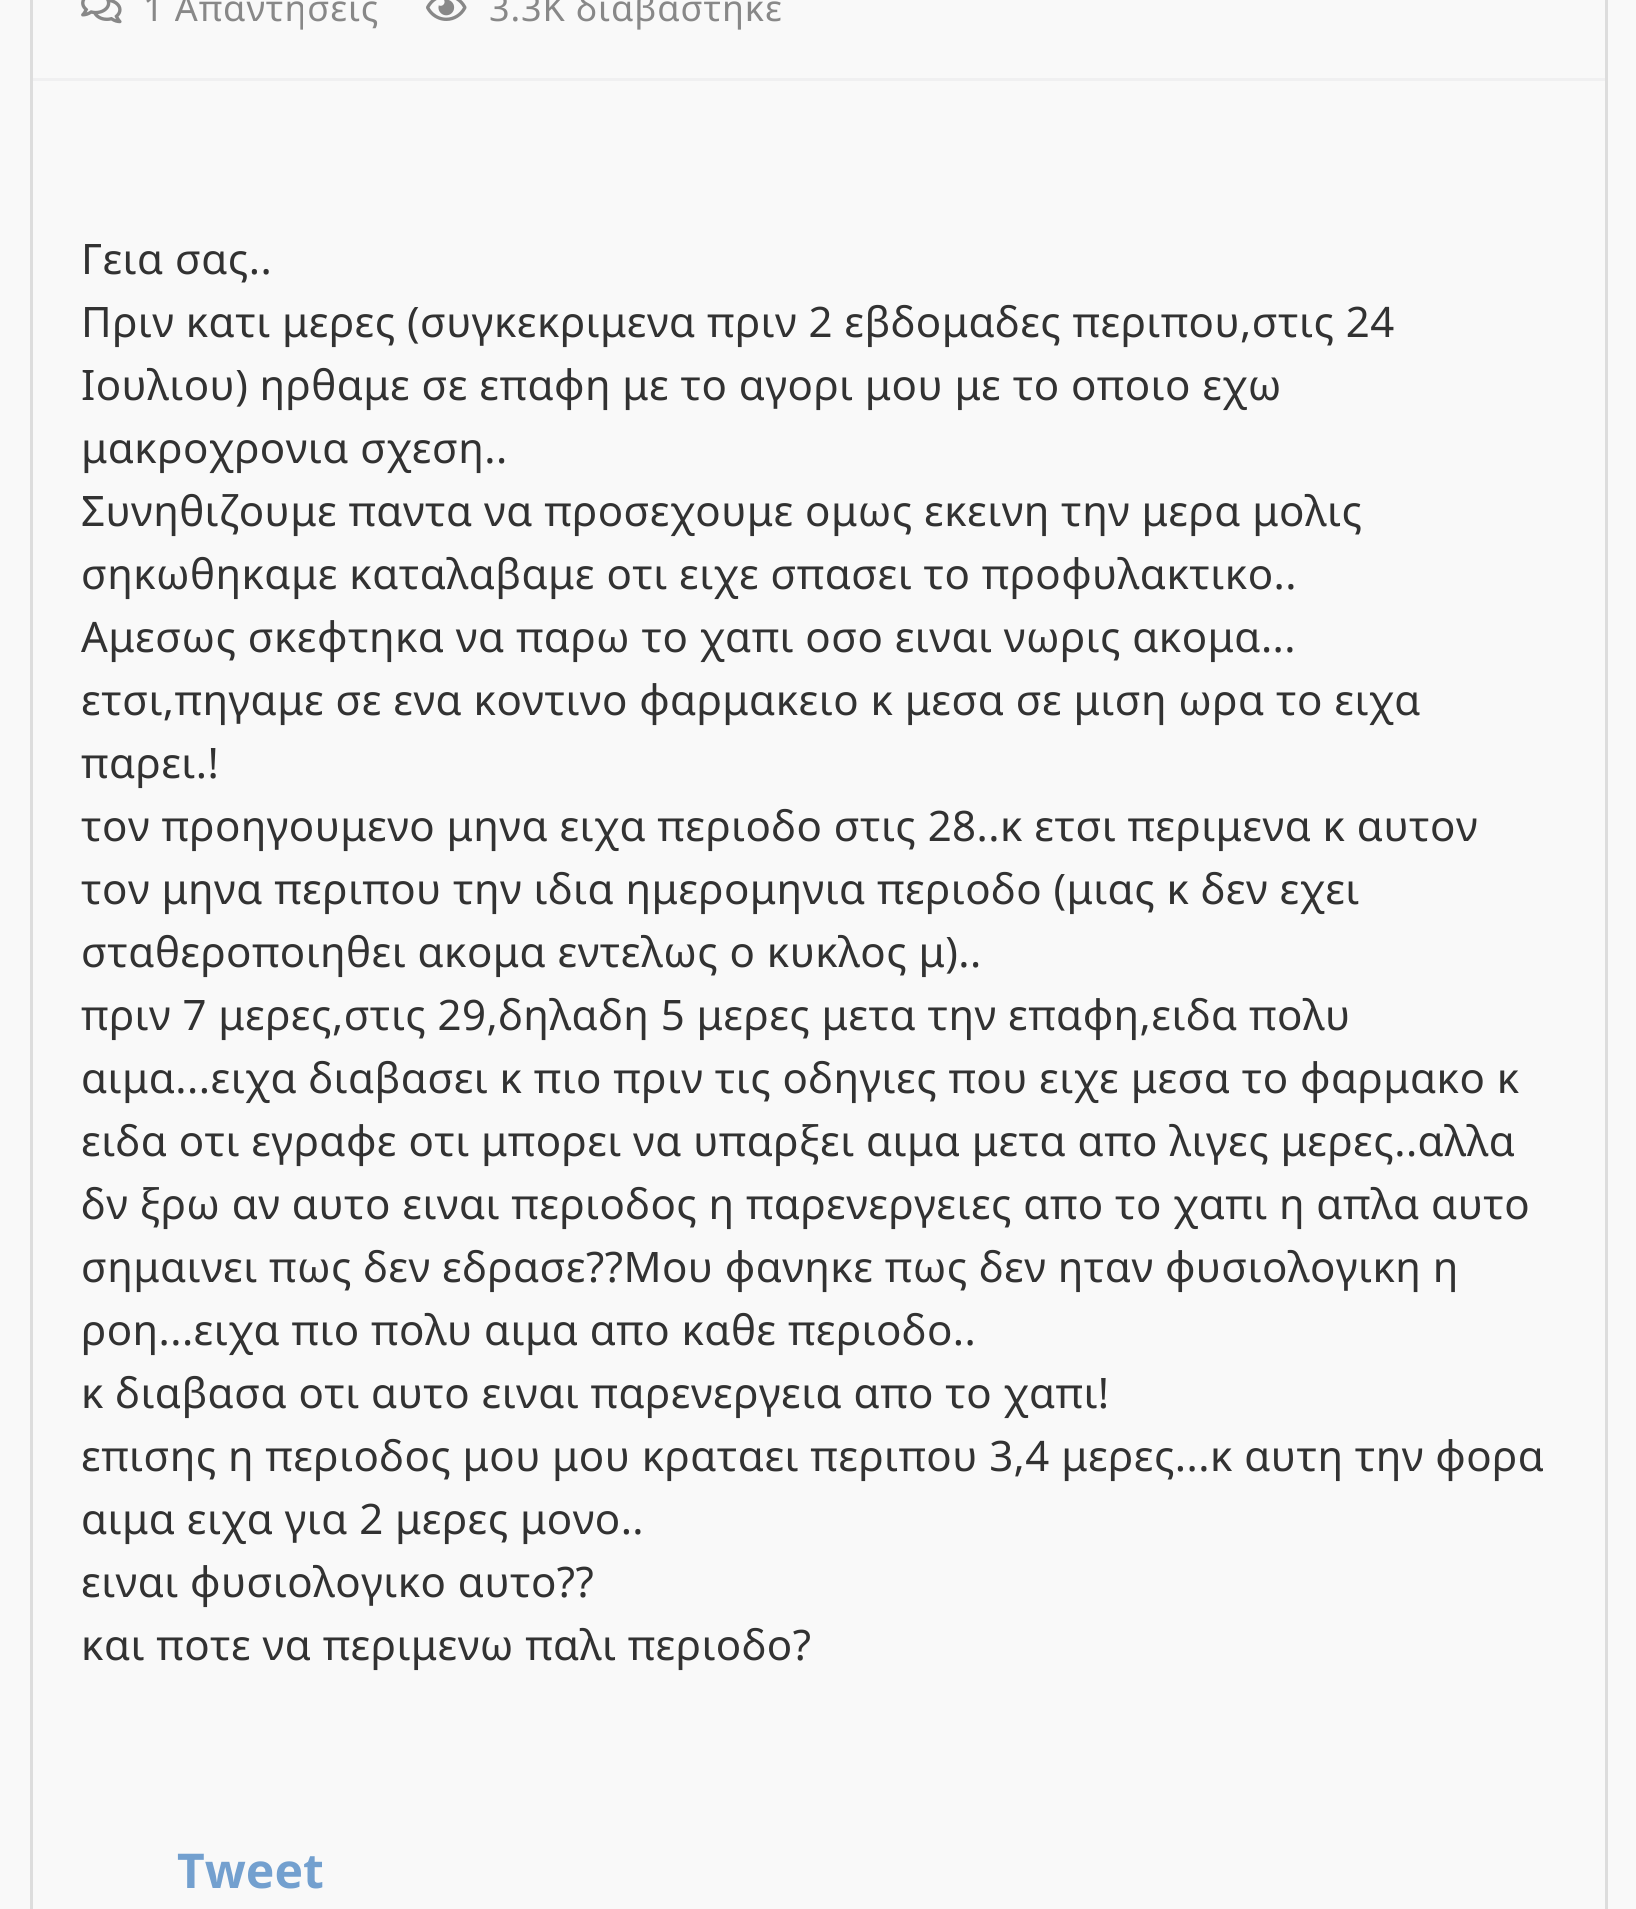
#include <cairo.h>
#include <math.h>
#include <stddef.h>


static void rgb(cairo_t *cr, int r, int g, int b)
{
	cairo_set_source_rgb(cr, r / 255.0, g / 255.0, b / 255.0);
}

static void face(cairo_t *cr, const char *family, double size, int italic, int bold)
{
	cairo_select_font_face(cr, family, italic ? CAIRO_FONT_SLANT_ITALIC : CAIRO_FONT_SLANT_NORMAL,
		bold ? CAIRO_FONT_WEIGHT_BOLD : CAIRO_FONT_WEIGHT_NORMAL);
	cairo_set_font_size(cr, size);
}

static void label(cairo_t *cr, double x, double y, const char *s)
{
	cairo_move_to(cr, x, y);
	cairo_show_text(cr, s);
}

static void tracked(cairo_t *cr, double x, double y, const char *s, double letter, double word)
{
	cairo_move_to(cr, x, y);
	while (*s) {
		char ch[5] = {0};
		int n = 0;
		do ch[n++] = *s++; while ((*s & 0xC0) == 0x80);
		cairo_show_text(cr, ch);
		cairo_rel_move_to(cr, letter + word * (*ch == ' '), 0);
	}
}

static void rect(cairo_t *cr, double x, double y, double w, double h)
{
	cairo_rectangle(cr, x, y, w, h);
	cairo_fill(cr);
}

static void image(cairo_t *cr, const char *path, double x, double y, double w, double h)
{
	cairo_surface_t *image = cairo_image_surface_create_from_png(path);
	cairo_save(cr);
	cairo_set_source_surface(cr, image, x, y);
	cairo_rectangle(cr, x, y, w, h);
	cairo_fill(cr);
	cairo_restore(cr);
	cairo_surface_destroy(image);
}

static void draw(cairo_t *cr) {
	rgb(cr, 249, 249, 249);
	cairo_paint(cr);
	cairo_rectangle(cr, 31.5, -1.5, 1575, 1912);
	rgb(cr, 221, 221, 221);
	cairo_set_line_width(cr, 3);
	cairo_stroke(cr);
	image(cr, "image0.png", 81, 0, 41, 24);
	face(cr, "Noto Sans", 36, 0, 0);
	rgb(cr, 136, 136, 136);
	tracked(cr, 143, 21, "1 Απαντήσεις", 0.9, 0);
	image(cr, "image1.png", 426, 0, 41, 21);
	tracked(cr, 489, 21, "3.3K διαβάστηκε", 0.9, 0);
	rgb(cr, 240, 240, 241);
	rect(cr, 33, 78, 1572, 3);
	face(cr, "Noto Sans", 42, 0, 0);
	rgb(cr, 50, 50, 50);
	tracked(cr, 81, 274, "Γεια σας..", 0.45, 0);
	tracked(cr, 81, 337, "Πριν κατι μερες (συγκεκριμενα πριν 2 εβδομαδες περιπου,στις 24", 0.45, 0);
	tracked(cr, 81, 400, "Ιουλιου) ηρθαμε σε επαφη με το αγορι μου με το οποιο εχω", 0.45, 0);
	tracked(cr, 81, 463, "μακροχρονια σχεση..", 0.45, 0);
	tracked(cr, 81, 526, "Συνηθιζουμε παντα να προσεχουμε ομως εκεινη την μερα μολις", 0.45, 0);
	tracked(cr, 81, 589, "σηκωθηκαμε καταλαβαμε οτι ειχε σπασει το προφυλακτικο..", 0.45, 0);
	tracked(cr, 81, 652, "Αμεσως σκεφτηκα να παρω το χαπι οσο ειναι νωρις ακομα...", 0.45, 0);
	tracked(cr, 81, 715, "ετσι,πηγαμε σε ενα κοντινο φαρμακειο κ μεσα σε μιση ωρα το ειχα", 0.45, 0);
	tracked(cr, 81, 778, "παρει.!", 0.45, 0);
	tracked(cr, 81, 841, "τον προηγουμενο μηνα ειχα περιοδο στις 28..κ ετσι περιμενα κ αυτον", 0.45, 0);
	tracked(cr, 81, 904, "τον μηνα περιπου την ιδια ημερομηνια περιοδο (μιας κ δεν εχει", 0.45, 0);
	tracked(cr, 81, 967, "σταθεροποιηθει ακομα εντελως ο κυκλος μ)..", 0.45, 0);
	tracked(cr, 81, 1030, "πριν 7 μερες,στις 29,δηλαδη 5 μερες μετα την επαφη,ειδα πολυ", 0.45, 0);
	tracked(cr, 81, 1093, "αιμα...ειχα διαβασει κ πιο πριν τις οδηγιες που ειχε μεσα το φαρμακο κ", 0.45, 0);
	tracked(cr, 81, 1156, "ειδα οτι εγραφε οτι μπορει να υπαρξει αιμα μετα απο λιγες μερες..αλλα", 0.45, 0);
	tracked(cr, 81, 1219, "δν ξρω αν αυτο ειναι περιοδος η παρενεργειες απο το χαπι η απλα αυτο", 0.45, 0);
	tracked(cr, 81, 1282, "σημαινει πως δεν εδρασε?\077Μου φανηκε πως δεν ηταν φυσιολογικη η", 0.45, 0);
	tracked(cr, 81, 1345, "ροη...ειχα πιο πολυ αιμα απο καθε περιοδο..", 0.45, 0);
	tracked(cr, 81, 1408, "κ διαβασα οτι αυτο ειναι παρενεργεια απο το χαπι!", 0.45, 0);
	tracked(cr, 81, 1471, "επισης η περιοδος μου μου κραταει περιπου 3,4 μερες...κ αυτη την φορα", 0.45, 0);
	tracked(cr, 81, 1534, "αιμα ειχα για 2 μερες μονο..", 0.45, 0);
	tracked(cr, 81, 1597, "ειναι φυσιολογικο αυτο?\077", 0.45, 0);
	tracked(cr, 81, 1660, "και ποτε να περιμενω παλι περιοδο?", 0.45, 0);
	face(cr, "Noto Sans", 48, 0, 1);
	rgb(cr, 115, 160, 207);
	label(cr, 177, 1888, "Tweet");
}

int main(void) {
	cairo_surface_t *surface = cairo_image_surface_create(CAIRO_FORMAT_RGB24, 1636, 1909);
	cairo_t *cr = cairo_create(surface);
	cairo_font_options_t *options = cairo_font_options_create();
	cairo_font_options_set_hint_metrics(options, CAIRO_HINT_METRICS_OFF);
	cairo_font_options_set_hint_style(options, CAIRO_HINT_STYLE_NONE);
	cairo_set_font_options(cr, options);
	cairo_set_miter_limit(cr, 4);
	draw(cr);
	cairo_surface_write_to_png(surface, "render.png");
	cairo_font_options_destroy(options);
	cairo_destroy(cr);
	cairo_surface_destroy(surface);
	return 0;
}
